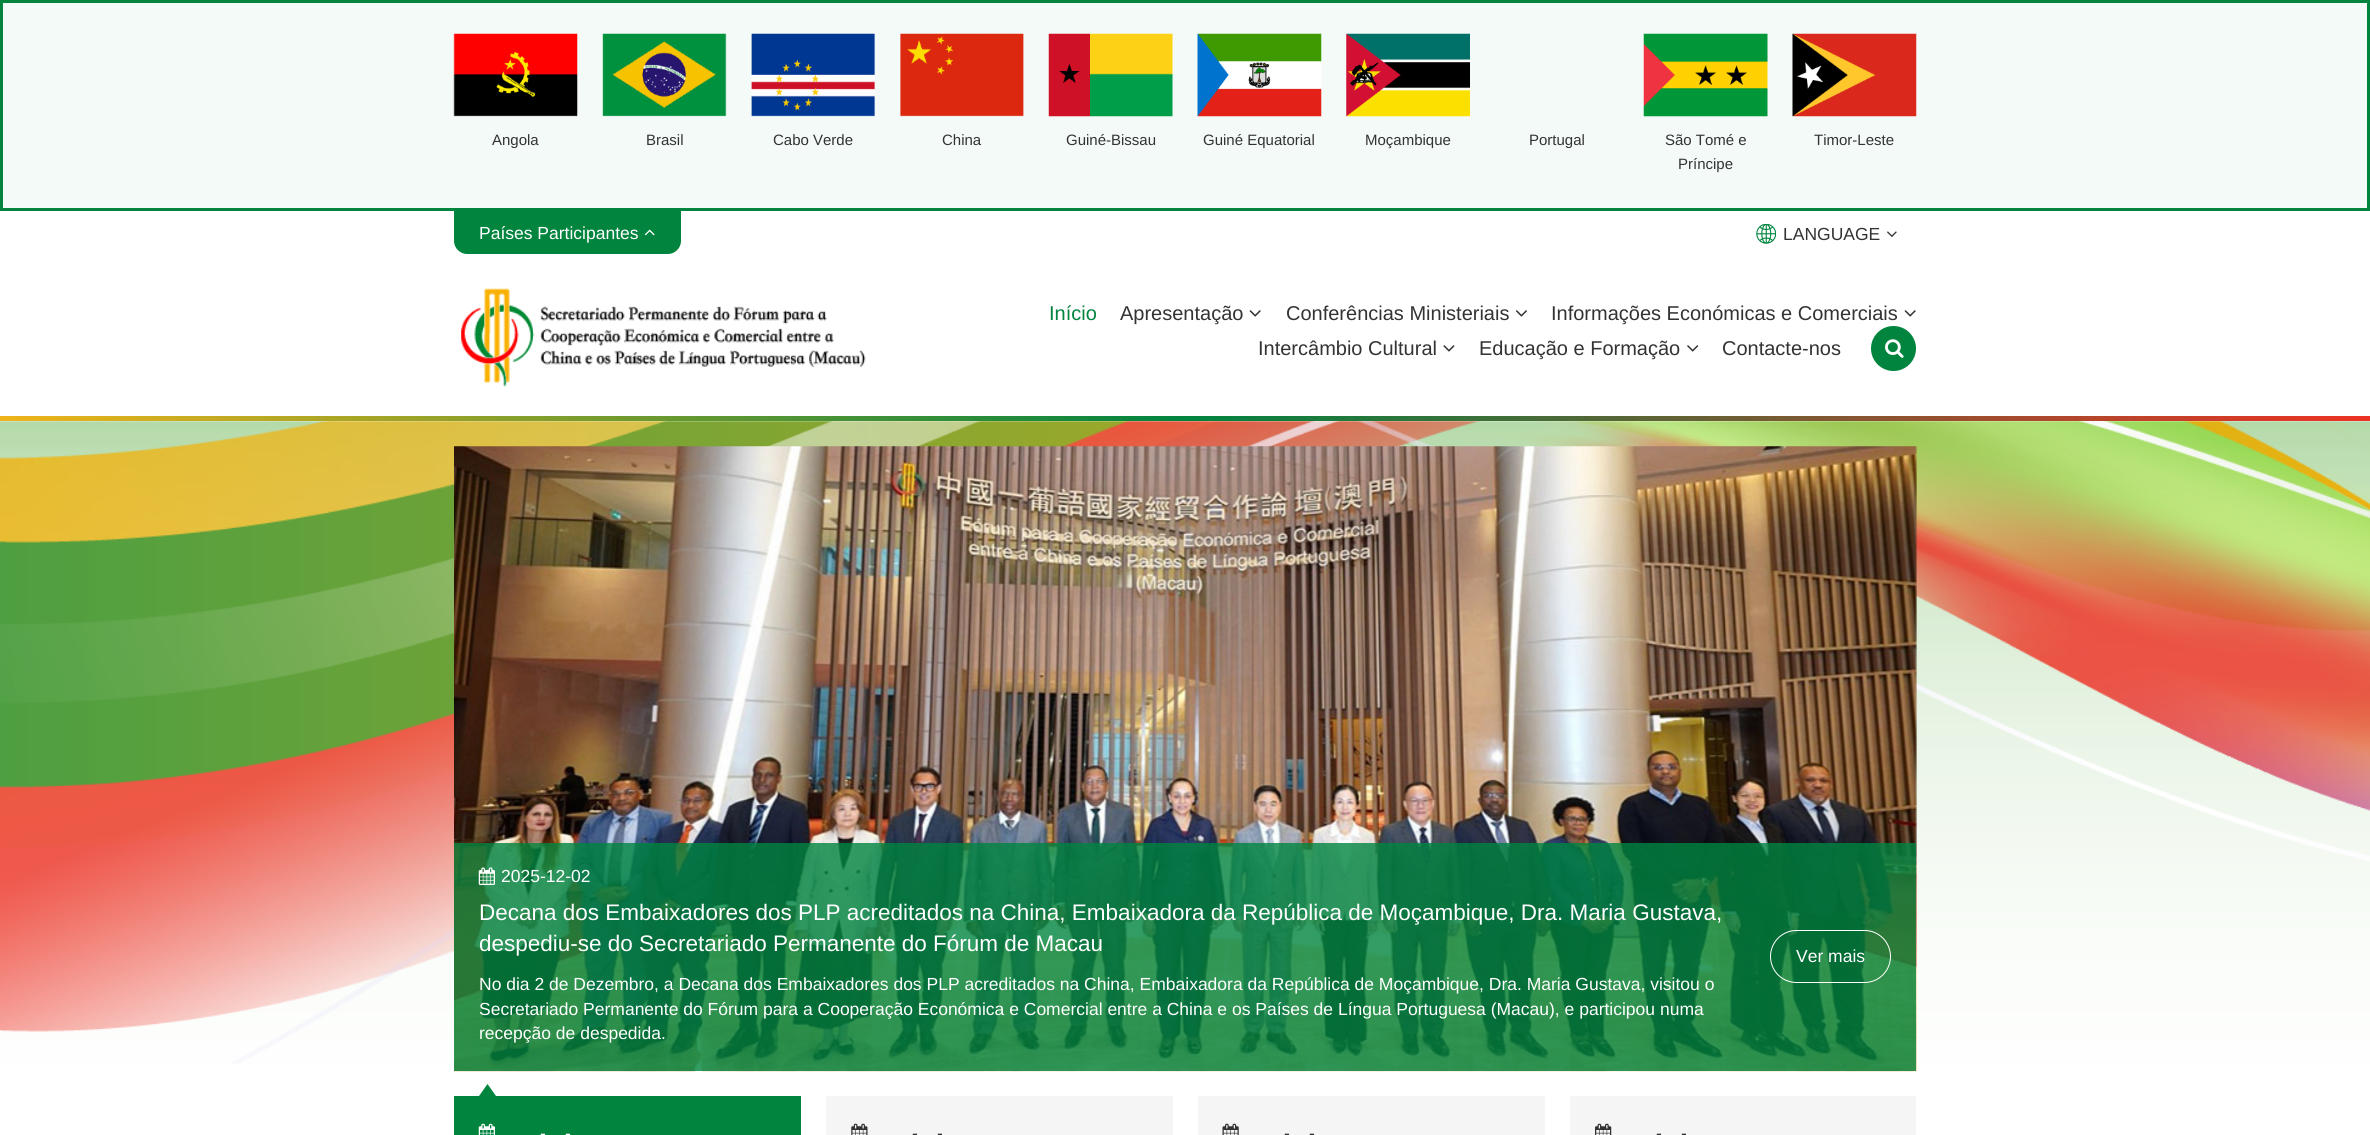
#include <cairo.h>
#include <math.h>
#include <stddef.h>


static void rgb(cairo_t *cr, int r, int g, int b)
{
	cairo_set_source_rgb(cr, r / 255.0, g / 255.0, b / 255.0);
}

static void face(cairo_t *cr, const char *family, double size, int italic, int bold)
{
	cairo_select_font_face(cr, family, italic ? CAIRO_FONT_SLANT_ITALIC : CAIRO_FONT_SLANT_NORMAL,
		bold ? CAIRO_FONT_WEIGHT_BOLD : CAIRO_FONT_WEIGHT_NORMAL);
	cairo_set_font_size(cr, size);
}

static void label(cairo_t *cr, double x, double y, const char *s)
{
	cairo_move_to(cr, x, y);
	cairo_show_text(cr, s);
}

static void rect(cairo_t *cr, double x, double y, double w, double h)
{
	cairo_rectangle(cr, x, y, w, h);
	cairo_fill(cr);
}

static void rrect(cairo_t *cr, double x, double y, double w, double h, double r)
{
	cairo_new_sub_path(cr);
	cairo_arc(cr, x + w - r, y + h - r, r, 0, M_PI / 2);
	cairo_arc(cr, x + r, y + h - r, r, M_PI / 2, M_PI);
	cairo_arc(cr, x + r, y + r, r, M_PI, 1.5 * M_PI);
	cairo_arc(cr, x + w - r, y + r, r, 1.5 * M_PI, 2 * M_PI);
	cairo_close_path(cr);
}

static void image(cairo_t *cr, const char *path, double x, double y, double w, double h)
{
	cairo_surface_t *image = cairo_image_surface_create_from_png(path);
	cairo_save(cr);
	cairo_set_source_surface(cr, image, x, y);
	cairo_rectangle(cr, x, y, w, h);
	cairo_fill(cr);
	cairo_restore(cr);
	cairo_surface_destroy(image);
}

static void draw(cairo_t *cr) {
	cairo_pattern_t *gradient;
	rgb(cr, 255, 255, 255);
	cairo_paint(cr);
	rgb(cr, 244, 250, 247);
	cairo_rectangle(cr, 1.5, 1.5, 2367, 208);
	cairo_fill_preserve(cr);
	rgb(cr, 0, 132, 62);
	cairo_set_line_width(cr, 3);
	cairo_stroke(cr);
	image(cr, "image0.png", 453, 33, 125, 84);
	face(cr, "Liberation Sans", 15, 0, 0);
	rgb(cr, 51, 51, 51);
	label(cr, 492, 145, "Angola");
	image(cr, "image1.png", 602, 33, 125, 84);
	label(cr, 646, 145, "Brasil");
	image(cr, "image2.png", 751, 33, 124, 84);
	label(cr, 773, 145, "Cabo Verde");
	image(cr, "image3.png", 900, 33, 124, 84);
	label(cr, 942, 145, "China");
	image(cr, "image4.png", 1048, 33, 125, 84);
	label(cr, 1066, 145, "Guiné-Bissau");
	image(cr, "image5.png", 1197, 33, 125, 84);
	label(cr, 1203, 145, "Guiné Equatorial");
	image(cr, "image6.png", 1346, 33, 124, 84);
	label(cr, 1365, 145, "Moçambique");
	label(cr, 1529, 145, "Portugal");
	image(cr, "image7.png", 1643, 33, 125, 84);
	label(cr, 1665, 145, "São Tomé e");
	label(cr, 1678, 169, "Príncipe");
	image(cr, "image8.png", 1792, 33, 125, 84);
	label(cr, 1814, 145, "Timor-Leste");
	rgb(cr, 0, 132, 62);
	cairo_new_path(cr);
	cairo_move_to(cr, 454, 211);
	cairo_line_to(cr, 681, 211);
	cairo_line_to(cr, 681, 241);
	cairo_curve_to(cr, 681, 248, 675, 254, 668, 254);
	cairo_line_to(cr, 467, 254);
	cairo_curve_to(cr, 460, 254, 454, 248, 454, 241);
	cairo_close_path(cr);
	cairo_fill(cr);
	face(cr, "Liberation Sans", 17.5, 0, 0);
	rgb(cr, 255, 255, 255);
	label(cr, 479, 239, "Países Participantes");
	image(cr, "image9.png", 644, 229, 11, 7);
	image(cr, "image10.png", 1756, 224, 20, 20);
	rgb(cr, 51, 51, 51);
	label(cr, 1783, 240, "LANGUAGE");
	image(cr, "image11.png", 1887, 231, 10, 6);
	image(cr, "image12.png", 461, 288, 405, 99);
	face(cr, "Liberation Sans", 20, 0, 0);
	rgb(cr, 0, 132, 62);
	label(cr, 1049, 320, "Início");
	rgb(cr, 51, 51, 51);
	label(cr, 1120, 320, "Apresentação");
	image(cr, "image13.png", 1249, 310, 12, 7);
	label(cr, 1286, 320, "Conferências Ministeriais");
	image(cr, "image14.png", 1515, 310, 12, 7);
	label(cr, 1551, 320, "Informações Económicas e Comerciais");
	image(cr, "image13.png", 1904, 310, 12, 7);
	label(cr, 1258, 355, "Intercâmbio Cultural");
	image(cr, "image15.png", 1443, 345, 12, 7);
	label(cr, 1479, 355, "Educação e Formação");
	image(cr, "image16.png", 1687, 345, 12, 7);
	label(cr, 1722, 355, "Contacte-nos");
	rgb(cr, 0, 132, 62);
	cairo_new_path(cr);
	cairo_arc(cr, 1893.5, 348.5, 22.5, 0, 2 * M_PI);
	cairo_fill(cr);
	image(cr, "image17.png", 1885, 339, 19, 19);
	gradient = cairo_pattern_create_linear(0, 419, 2370, 419);
	cairo_pattern_add_color_stop_rgba(gradient, 0, 0.937, 0.702, 0.106, 1);
	cairo_pattern_add_color_stop_rgba(gradient, 0.5, 0, 0.518, 0.251, 1);
	cairo_pattern_add_color_stop_rgba(gradient, 1, 0.929, 0.196, 0.141, 1);
	cairo_set_source(cr, gradient);
	cairo_pattern_destroy(gradient);
	rect(cr, 0, 416, 2370, 5);
	image(cr, "image18.png", 0, 421, 2370, 643);
	image(cr, "image19.png", 454, 446, 1463, 626);
	cairo_set_source_rgba(cr, 0, 0.518, 0.251, 0.8);
	rect(cr, 454, 843, 1462, 228);
	image(cr, "image20.png", 478, 867, 17, 18);
	face(cr, "Liberation Sans", 17.5, 0, 0);
	rgb(cr, 255, 255, 255);
	label(cr, 501, 882, "2025-12-02");
	face(cr, "Liberation Sans", 22.5, 0, 0);
	label(cr, 479, 920, "Decana dos Embaixadores dos PLP acreditados na China, Embaixadora da República de Moçambique, Dra. Maria Gustava,");
	label(cr, 479, 951, "despediu-se do Secretariado Permanente do Fórum de Macau");
	face(cr, "Liberation Sans", 17.5, 0, 0);
	label(cr, 479, 990, "No dia 2 de Dezembro, a Decana dos Embaixadores dos PLP acreditados na China, Embaixadora da República de Moçambique, Dra. Maria Gustava, visitou o");
	label(cr, 479, 1015, "Secretariado Permanente do Fórum para a Cooperação Económica e Comercial entre a China e os Países de Língua Portuguesa (Macau), e participou numa");
	label(cr, 479, 1039, "recepção de despedida.");
	rrect(cr, 1770.5, 930.5, 120, 52, 26);
	cairo_set_line_width(cr, 1);
	cairo_stroke(cr);
	label(cr, 1796, 962, "Ver mais");
	rgb(cr, 0, 132, 62);
	rect(cr, 454, 1096, 347, 39);
	cairo_new_path(cr);
	cairo_move_to(cr, 496, 1096);
	cairo_line_to(cr, 479, 1096);
	cairo_line_to(cr, 487.5, 1084);
	cairo_close_path(cr);
	cairo_fill(cr);
	image(cr, "image21.png", 478, 1123, 17, 12);
	rgb(cr, 255, 255, 255);
	label(cr, 540, 1139, "-");
	label(cr, 565, 1139, "-");
	rgb(cr, 245, 245, 245);
	rect(cr, 826, 1096, 347, 39);
	image(cr, "image22.png", 851, 1123, 17, 12);
	rgb(cr, 51, 51, 51);
	label(cr, 912, 1139, "-");
	label(cr, 937, 1139, "-");
	rgb(cr, 245, 245, 245);
	rect(cr, 1198, 1096, 347, 39);
	image(cr, "image23.png", 1222, 1123, 17, 12);
	rgb(cr, 51, 51, 51);
	label(cr, 1284, 1139, "-");
	label(cr, 1309, 1139, "-");
	rgb(cr, 245, 245, 245);
	rect(cr, 1570, 1096, 346, 39);
	image(cr, "image24.png", 1595, 1123, 17, 12);
	rgb(cr, 51, 51, 51);
	label(cr, 1656, 1139, "-");
	label(cr, 1681, 1139, "-");
}

int main(void) {
	cairo_surface_t *surface = cairo_image_surface_create(CAIRO_FORMAT_RGB24, 2370, 1135);
	cairo_t *cr = cairo_create(surface);
	cairo_font_options_t *options = cairo_font_options_create();
	cairo_font_options_set_hint_metrics(options, CAIRO_HINT_METRICS_OFF);
	cairo_font_options_set_hint_style(options, CAIRO_HINT_STYLE_NONE);
	cairo_set_font_options(cr, options);
	cairo_set_miter_limit(cr, 4);
	draw(cr);
	cairo_surface_write_to_png(surface, "render.png");
	cairo_font_options_destroy(options);
	cairo_destroy(cr);
	cairo_surface_destroy(surface);
	return 0;
}
